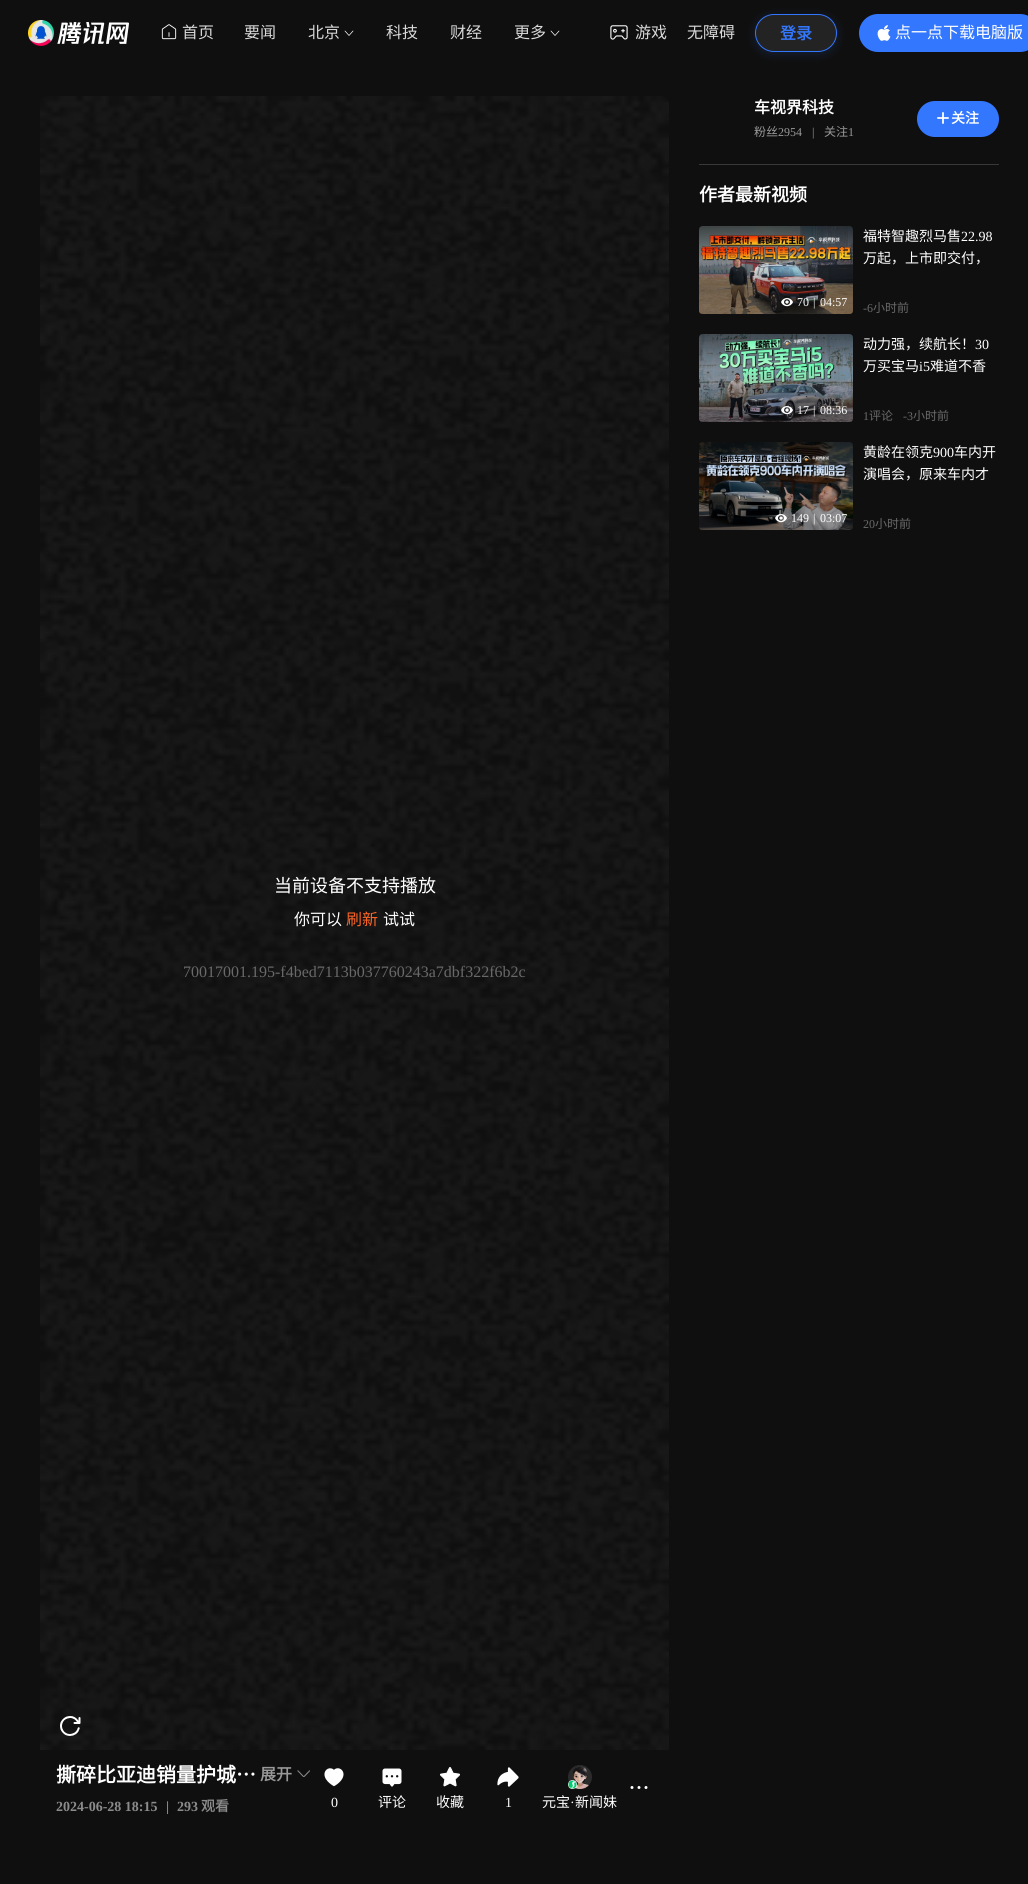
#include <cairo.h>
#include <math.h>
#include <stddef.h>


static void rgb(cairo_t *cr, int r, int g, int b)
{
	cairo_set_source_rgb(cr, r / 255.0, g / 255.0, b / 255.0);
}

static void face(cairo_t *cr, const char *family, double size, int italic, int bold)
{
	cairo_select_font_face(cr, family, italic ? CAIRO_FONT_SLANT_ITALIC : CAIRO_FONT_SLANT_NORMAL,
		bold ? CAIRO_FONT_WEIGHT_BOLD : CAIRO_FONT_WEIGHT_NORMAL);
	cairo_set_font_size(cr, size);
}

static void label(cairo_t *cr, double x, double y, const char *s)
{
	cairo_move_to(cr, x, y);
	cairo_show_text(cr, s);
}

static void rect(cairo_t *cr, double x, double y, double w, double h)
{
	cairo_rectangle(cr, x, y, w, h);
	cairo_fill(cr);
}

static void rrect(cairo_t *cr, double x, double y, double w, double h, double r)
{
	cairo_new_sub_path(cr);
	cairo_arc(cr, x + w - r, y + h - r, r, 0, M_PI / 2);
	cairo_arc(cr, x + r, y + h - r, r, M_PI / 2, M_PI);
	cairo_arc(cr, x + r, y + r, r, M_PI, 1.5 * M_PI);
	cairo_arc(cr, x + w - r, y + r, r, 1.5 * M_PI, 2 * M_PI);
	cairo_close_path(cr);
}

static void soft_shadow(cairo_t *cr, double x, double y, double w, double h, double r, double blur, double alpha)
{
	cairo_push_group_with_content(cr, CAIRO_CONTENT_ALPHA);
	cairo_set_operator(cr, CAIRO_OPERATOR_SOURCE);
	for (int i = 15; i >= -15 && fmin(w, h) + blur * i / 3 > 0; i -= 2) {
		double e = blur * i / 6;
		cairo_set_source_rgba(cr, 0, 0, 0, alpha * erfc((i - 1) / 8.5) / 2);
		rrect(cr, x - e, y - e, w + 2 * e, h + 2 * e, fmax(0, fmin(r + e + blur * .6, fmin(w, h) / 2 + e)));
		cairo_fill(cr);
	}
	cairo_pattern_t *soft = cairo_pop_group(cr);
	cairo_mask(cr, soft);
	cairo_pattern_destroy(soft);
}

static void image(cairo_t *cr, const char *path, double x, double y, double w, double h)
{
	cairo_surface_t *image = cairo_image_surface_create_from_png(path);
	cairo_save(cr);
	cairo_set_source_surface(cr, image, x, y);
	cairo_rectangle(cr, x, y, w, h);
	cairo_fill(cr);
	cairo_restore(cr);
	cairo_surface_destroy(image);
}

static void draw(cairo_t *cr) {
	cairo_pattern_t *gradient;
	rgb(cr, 15, 15, 15);
	cairo_paint(cr);
	image(cr, "image0.png", 28, 20, 101, 26);
	image(cr, "image1.png", 161, 24, 16, 16);
	face(cr, "Noto Sans CJK SC", 16, 0, 0);
	rgb(cr, 217, 217, 217);
	label(cr, 182, 38, "首页");
	label(cr, 244, 38, "要闻");
	label(cr, 308, 38, "北京");
	cairo_new_path(cr);
	cairo_move_to(cr, 353, 31);
	cairo_line_to(cr, 349, 35.5);
	cairo_line_to(cr, 345, 31);
	rgb(cr, 255, 255, 255);
	cairo_set_line_width(cr, 0.7);
	cairo_set_line_cap(cr, CAIRO_LINE_CAP_ROUND);
	cairo_set_line_join(cr, CAIRO_LINE_JOIN_ROUND);
	cairo_stroke(cr);
	rgb(cr, 217, 217, 217);
	label(cr, 386, 38, "科技");
	label(cr, 450, 38, "财经");
	label(cr, 514, 38, "更多");
	cairo_new_path(cr);
	cairo_move_to(cr, 559, 31);
	cairo_line_to(cr, 555, 35.5);
	cairo_line_to(cr, 551, 31);
	rgb(cr, 255, 255, 255);
	cairo_stroke(cr);
	image(cr, "image2.png", 610, 25, 18, 15);
	rgb(cr, 217, 217, 217);
	label(cr, 635, 38, "游戏");
	label(cr, 687, 38, "无障碍");
	cairo_save(cr);
	cairo_set_fill_rule(cr, CAIRO_FILL_RULE_EVEN_ODD);
	cairo_new_path(cr);
	cairo_move_to(cr, 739, 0);
	cairo_line_to(cr, 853, 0);
	cairo_line_to(cr, 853, 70);
	cairo_line_to(cr, 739, 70);
	cairo_close_path(cr);
	cairo_move_to(cr, 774, 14);
	cairo_line_to(cr, 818, 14);
	cairo_curve_to(cr, 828.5, 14, 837, 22.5, 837, 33);
	cairo_curve_to(cr, 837, 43.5, 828.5, 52, 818, 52);
	cairo_line_to(cr, 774, 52);
	cairo_curve_to(cr, 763.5, 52, 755, 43.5, 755, 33);
	cairo_curve_to(cr, 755, 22.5, 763.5, 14, 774, 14);
	cairo_close_path(cr);
	cairo_clip(cr);
	rgb(cr, 51, 119, 255);
	soft_shadow(cr, 755, 16, 82, 38, 19, 5, 0.16);
	cairo_restore(cr);
	cairo_set_source_rgba(cr, 0.851, 0.851, 0.851, 0.1);
	rrect(cr, 755.5, 14.5, 81, 37, 18.5);
	cairo_fill_preserve(cr);
	rgb(cr, 51, 119, 255);
	cairo_set_line_width(cr, 1);
	cairo_set_line_cap(cr, CAIRO_LINE_CAP_BUTT);
	cairo_set_line_join(cr, CAIRO_LINE_JOIN_MITER);
	cairo_stroke(cr);
	face(cr, "Noto Sans CJK SC", 16, 0, 1);
	label(cr, 780, 39, "登录");
	rrect(cr, 859, 14, 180, 38, 19);
	cairo_fill(cr);
	image(cr, "image3.png", 877, 25, 14, 16);
	face(cr, "Noto Sans CJK SC", 16, 0, 0);
	rgb(cr, 255, 255, 255);
	label(cr, 895, 38, "点一点下载电脑版");
	face(cr, "Noto Sans CJK SC", 16, 0, 1);
	label(cr, 754, 113, "车视界科技");
	face(cr, "Noto Sans CJK SC", 12, 0, 0);
	rgb(cr, 153, 153, 153);
	label(cr, 754, 136, "粉丝");
	face(cr, "Liberation Serif", 12, 0, 0);
	label(cr, 778, 136, "2954");
	label(cr, 812, 136, "|");
	face(cr, "Noto Sans CJK SC", 12, 0, 0);
	label(cr, 824, 136, "关注");
	face(cr, "Liberation Serif", 12, 0, 0);
	label(cr, 848, 136, "1");
	rgb(cr, 51, 119, 255);
	rrect(cr, 917, 101, 82, 36, 18);
	cairo_fill(cr);
	image(cr, "image4.png", 937, 112, 12, 12);
	face(cr, "Noto Sans CJK SC", 14, 0, 1);
	rgb(cr, 255, 255, 255);
	label(cr, 951, 123, "关注");
	rgb(cr, 56, 56, 56);
	rect(cr, 699, 164, 300, 1);
	face(cr, "Noto Sans CJK SC", 18, 0, 1);
	rgb(cr, 255, 255, 255);
	label(cr, 699, 201, "作者最新视频");
	image(cr, "image5.png", 699, 226, 154, 88);
	gradient = cairo_pattern_create_linear(776, 314, 776, 226);
	cairo_pattern_add_color_stop_rgba(gradient, 0.3, 0, 0, 0, 0.3);
	cairo_pattern_add_color_stop_rgba(gradient, 0.6, 0, 0, 0, 0);
	cairo_set_source(cr, gradient);
	cairo_pattern_destroy(gradient);
	rrect(cr, 699, 226, 154, 88, 4);
	cairo_fill(cr);
	image(cr, "image6.png", 781, 298, 12, 9);
	face(cr, "Liberation Serif", 12, 0, 0);
	rgb(cr, 255, 255, 255);
	label(cr, 797, 306, "70");
	label(cr, 813, 306, "|");
	label(cr, 820, 306, "04:57");
	face(cr, "Noto Sans CJK SC", 14, 0, 0);
	label(cr, 863, 241, "福特智趣烈马售");
	face(cr, "Liberation Serif", 14, 0, 0);
	label(cr, 961, 241, "22.98");
	face(cr, "Noto Sans CJK SC", 14, 0, 0);
	label(cr, 863, 263, "万起，上市即交付，");
	face(cr, "Liberation Serif", 12, 0, 0);
	rgb(cr, 105, 105, 105);
	label(cr, 863, 312, "-6");
	face(cr, "Noto Sans CJK SC", 12, 0, 0);
	label(cr, 873, 312, "小时前");
	image(cr, "image7.png", 699, 334, 154, 88);
	gradient = cairo_pattern_create_linear(776, 422, 776, 334);
	cairo_pattern_add_color_stop_rgba(gradient, 0.3, 0, 0, 0, 0.3);
	cairo_pattern_add_color_stop_rgba(gradient, 0.6, 0, 0, 0, 0);
	cairo_set_source(cr, gradient);
	cairo_pattern_destroy(gradient);
	rrect(cr, 699, 334, 154, 88, 4);
	cairo_fill(cr);
	image(cr, "image8.png", 781, 406, 12, 9);
	face(cr, "Liberation Serif", 12, 0, 0);
	rgb(cr, 255, 255, 255);
	label(cr, 797, 414, "17");
	label(cr, 813, 414, "|");
	label(cr, 820, 414, "08:36");
	face(cr, "Noto Sans CJK SC", 14, 0, 0);
	label(cr, 863, 349, "动力强，续航长！");
	face(cr, "Liberation Serif", 14, 0, 0);
	label(cr, 975, 349, "30");
	face(cr, "Noto Sans CJK SC", 14, 0, 0);
	label(cr, 863, 371, "万买宝马");
	face(cr, "Liberation Serif", 14, 0, 0);
	label(cr, 919, 371, "i5");
	face(cr, "Noto Sans CJK SC", 14, 0, 0);
	label(cr, 930, 371, "难道不香");
	face(cr, "Liberation Serif", 12, 0, 0);
	rgb(cr, 105, 105, 105);
	label(cr, 863, 420, "1");
	face(cr, "Noto Sans CJK SC", 12, 0, 0);
	label(cr, 869, 420, "评论");
	face(cr, "Liberation Serif", 12, 0, 0);
	label(cr, 903, 420, "-3");
	face(cr, "Noto Sans CJK SC", 12, 0, 0);
	label(cr, 913, 420, "小时前");
	image(cr, "image9.png", 699, 442, 154, 88);
	gradient = cairo_pattern_create_linear(776, 530, 776, 442);
	cairo_pattern_add_color_stop_rgba(gradient, 0.3, 0, 0, 0, 0.3);
	cairo_pattern_add_color_stop_rgba(gradient, 0.6, 0, 0, 0, 0);
	cairo_set_source(cr, gradient);
	cairo_pattern_destroy(gradient);
	rrect(cr, 699, 442, 154, 88, 4);
	cairo_fill(cr);
	image(cr, "image10.png", 775, 514, 12, 9);
	face(cr, "Liberation Serif", 12, 0, 0);
	rgb(cr, 255, 255, 255);
	label(cr, 791, 522, "149");
	label(cr, 813, 522, "|");
	label(cr, 820, 522, "03:07");
	face(cr, "Noto Sans CJK SC", 14, 0, 0);
	label(cr, 863, 457, "黄龄在领克");
	face(cr, "Liberation Serif", 14, 0, 0);
	label(cr, 933, 457, "900");
	face(cr, "Noto Sans CJK SC", 14, 0, 0);
	label(cr, 954, 457, "车内开");
	label(cr, 863, 479, "演唱会，原来车内才");
	face(cr, "Liberation Serif", 12, 0, 0);
	rgb(cr, 105, 105, 105);
	label(cr, 863, 528, "20");
	face(cr, "Noto Sans CJK SC", 12, 0, 0);
	label(cr, 875, 528, "小时前");
	image(cr, "image11.png", 40, 96, 629, 1654);
	face(cr, "Noto Sans CJK SC", 18, 0, 0);
	rgb(cr, 255, 255, 255);
	label(cr, 274, 892, "当前设备不支持播放");
	face(cr, "Noto Sans CJK SC", 16, 0, 0);
	label(cr, 294, 925, "你可以");
	rgb(cr, 252, 101, 38);
	label(cr, 346, 925, "刷新");
	rgb(cr, 255, 255, 255);
	label(cr, 383, 925, "试试");
	face(cr, "Liberation Serif", 16, 0, 0);
	rgb(cr, 105, 105, 105);
	label(cr, 183, 977, "70017001.195-f4bed7113b037760243a7dbf322f6b2c");
	face(cr, "Noto Sans CJK SC", 20, 0, 1);
	rgb(cr, 255, 255, 255);
	label(cr, 56, 1782, "撕碎比亚迪销量护城…");
	face(cr, "Noto Sans CJK SC", 16, 0, 1);
	rgb(cr, 153, 153, 153);
	label(cr, 260, 1780, "展开");
	image(cr, "image12.png", 297, 1770, 13, 7);
	face(cr, "Liberation Serif", 14, 0, 1);
	rgb(cr, 139, 139, 139);
	label(cr, 56, 1811, "2024-06-28 18:15");
	label(cr, 166, 1811, "|");
	label(cr, 177, 1811, "293");
	face(cr, "Noto Sans CJK SC", 14, 0, 1);
	label(cr, 201, 1811, "观看");
	image(cr, "image13.png", 630, 1786, 18, 3);
	image(cr, "image14.png", 324, 1768, 20, 19);
	face(cr, "Liberation Serif", 14, 0, 0);
	rgb(cr, 255, 255, 255);
	label(cr, 331, 1807, "0");
	image(cr, "image15.png", 382, 1768, 20, 19);
	face(cr, "Noto Sans CJK SC", 14, 0, 0);
	label(cr, 378, 1807, "评论");
	image(cr, "image16.png", 440, 1767, 20, 20);
	label(cr, 436, 1807, "收藏");
	image(cr, "image17.png", 497, 1767, 22, 20);
	face(cr, "Liberation Serif", 14, 0, 0);
	label(cr, 505, 1807, "1");
	image(cr, "image18.png", 568, 1765, 24, 24);
	image(cr, "image19.png", 568, 1780, 9, 9);
	face(cr, "Noto Sans CJK SC", 14, 0, 0);
	label(cr, 542, 1807, "元宝");
	face(cr, "Liberation Serif", 14, 0, 0);
	label(cr, 570, 1807, "·");
	face(cr, "Noto Sans CJK SC", 14, 0, 0);
	label(cr, 575, 1807, "新闻妹");
}

int main(void) {
	cairo_surface_t *surface = cairo_image_surface_create(CAIRO_FORMAT_RGB24, 1028, 1884);
	cairo_t *cr = cairo_create(surface);
	cairo_font_options_t *options = cairo_font_options_create();
	cairo_font_options_set_hint_metrics(options, CAIRO_HINT_METRICS_OFF);
	cairo_font_options_set_hint_style(options, CAIRO_HINT_STYLE_NONE);
	cairo_set_font_options(cr, options);
	cairo_set_miter_limit(cr, 4);
	draw(cr);
	cairo_surface_write_to_png(surface, "render.png");
	cairo_font_options_destroy(options);
	cairo_destroy(cr);
	cairo_surface_destroy(surface);
	return 0;
}
